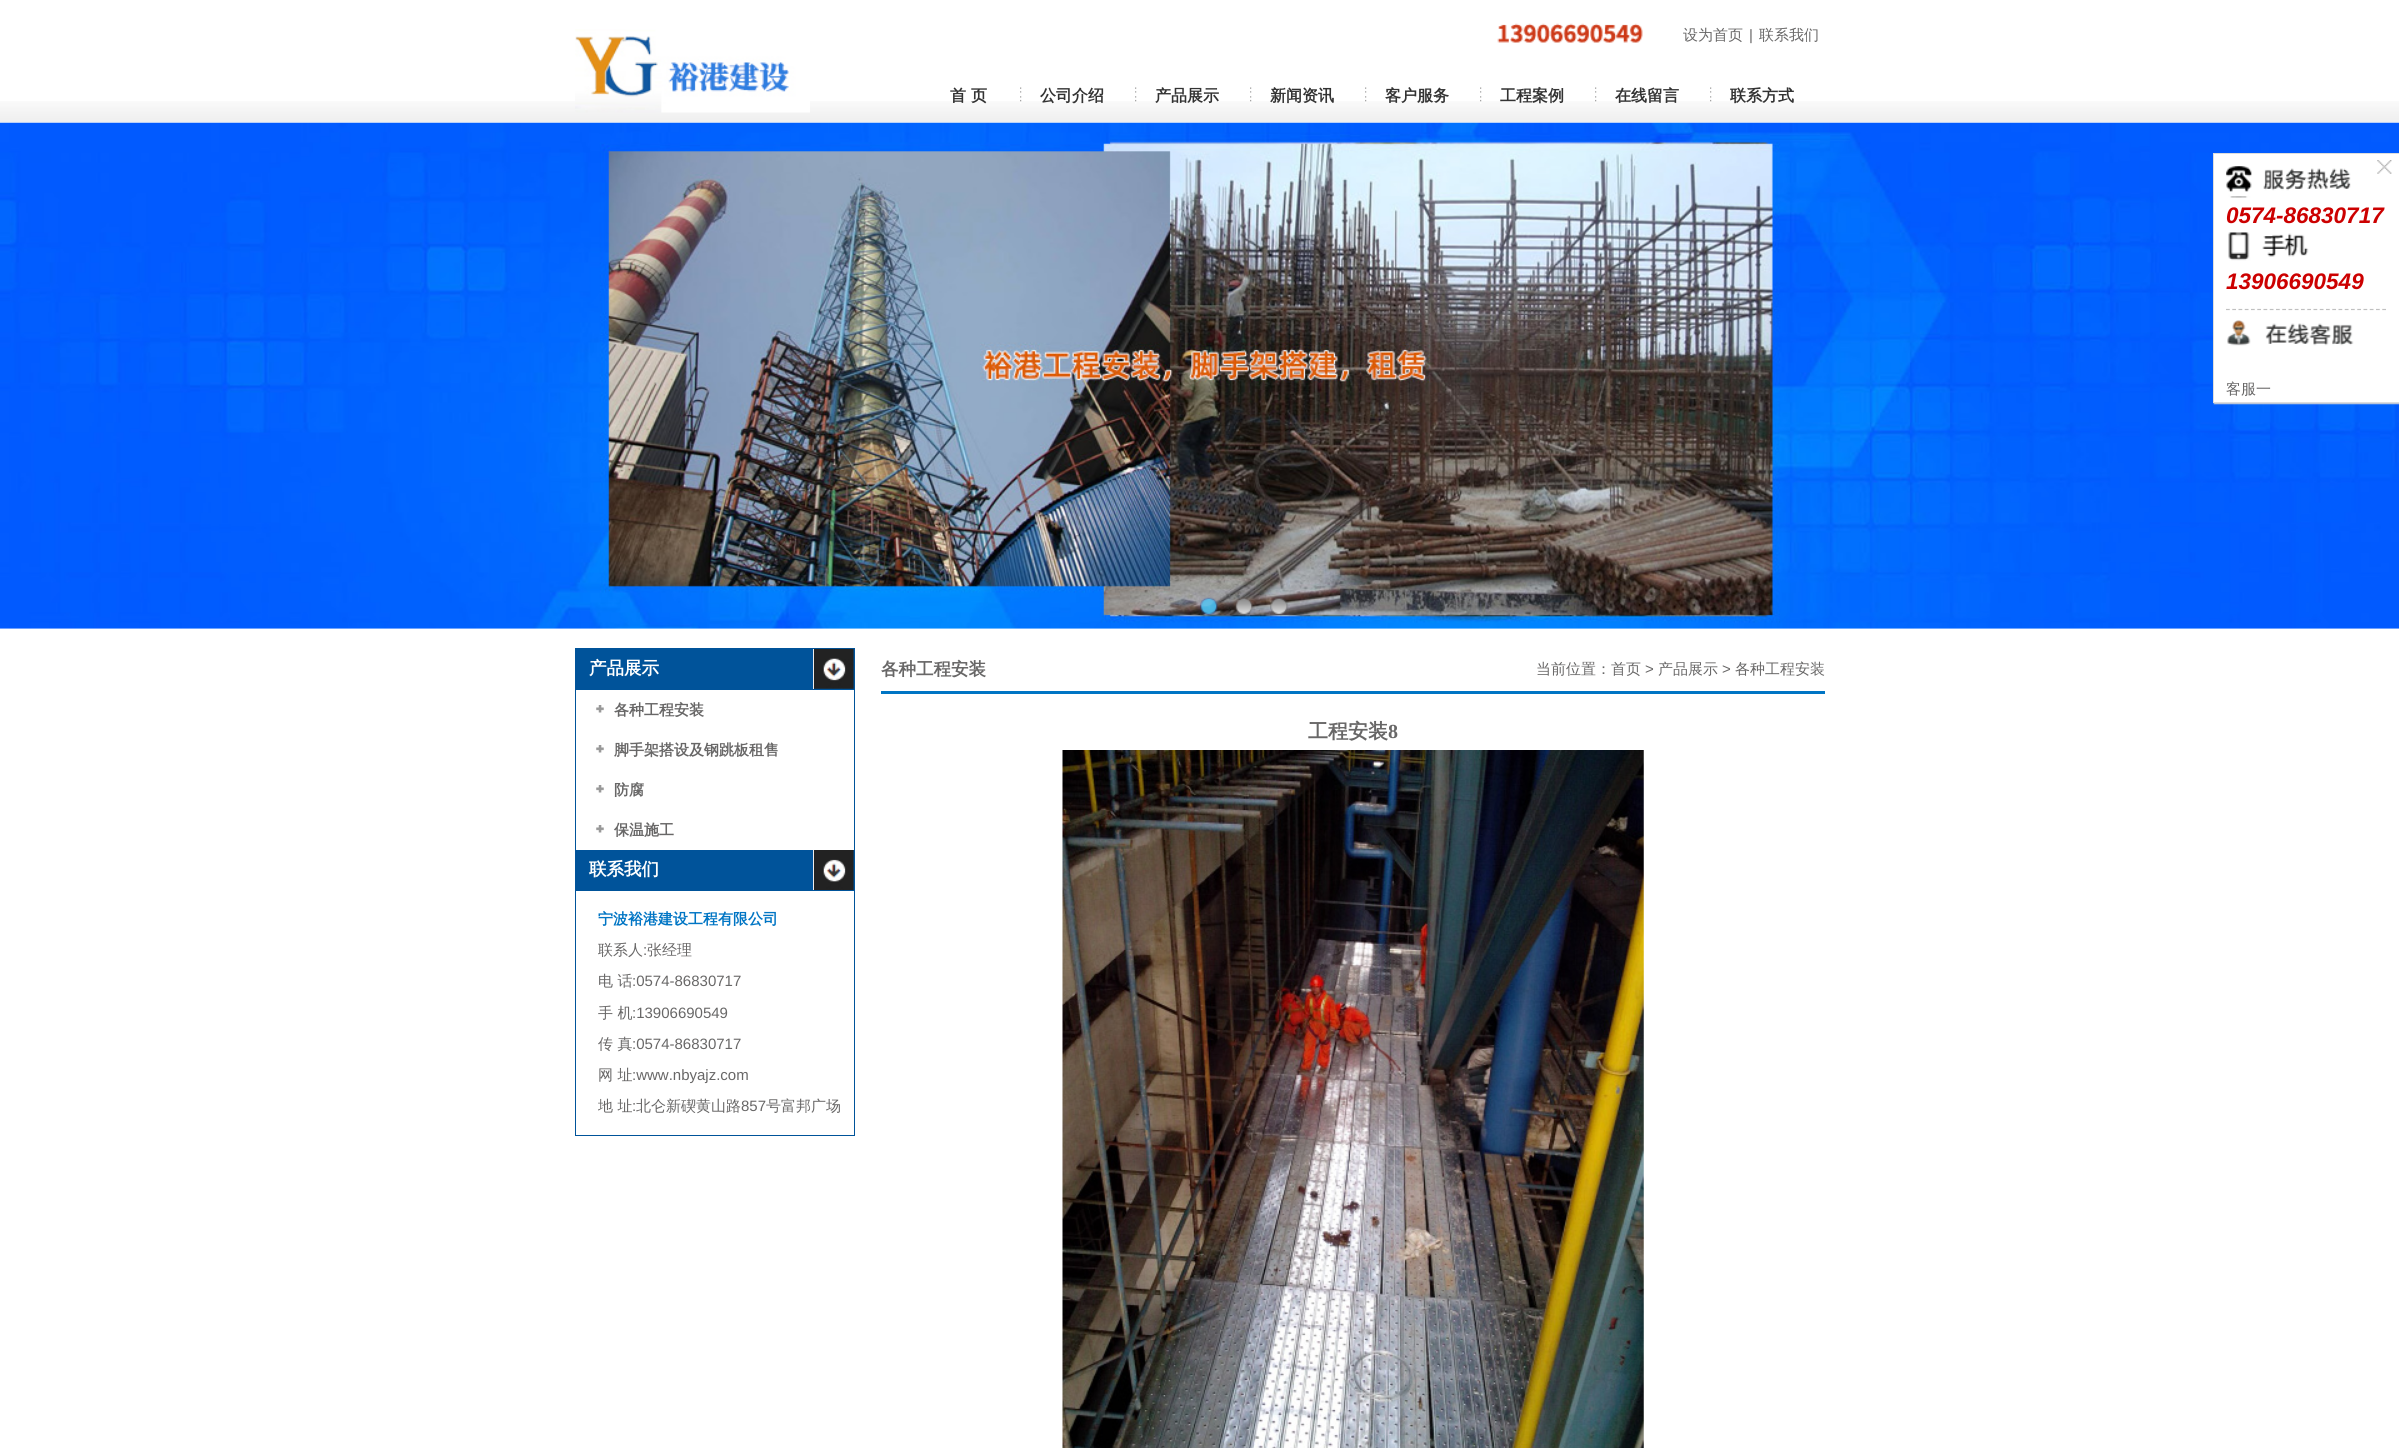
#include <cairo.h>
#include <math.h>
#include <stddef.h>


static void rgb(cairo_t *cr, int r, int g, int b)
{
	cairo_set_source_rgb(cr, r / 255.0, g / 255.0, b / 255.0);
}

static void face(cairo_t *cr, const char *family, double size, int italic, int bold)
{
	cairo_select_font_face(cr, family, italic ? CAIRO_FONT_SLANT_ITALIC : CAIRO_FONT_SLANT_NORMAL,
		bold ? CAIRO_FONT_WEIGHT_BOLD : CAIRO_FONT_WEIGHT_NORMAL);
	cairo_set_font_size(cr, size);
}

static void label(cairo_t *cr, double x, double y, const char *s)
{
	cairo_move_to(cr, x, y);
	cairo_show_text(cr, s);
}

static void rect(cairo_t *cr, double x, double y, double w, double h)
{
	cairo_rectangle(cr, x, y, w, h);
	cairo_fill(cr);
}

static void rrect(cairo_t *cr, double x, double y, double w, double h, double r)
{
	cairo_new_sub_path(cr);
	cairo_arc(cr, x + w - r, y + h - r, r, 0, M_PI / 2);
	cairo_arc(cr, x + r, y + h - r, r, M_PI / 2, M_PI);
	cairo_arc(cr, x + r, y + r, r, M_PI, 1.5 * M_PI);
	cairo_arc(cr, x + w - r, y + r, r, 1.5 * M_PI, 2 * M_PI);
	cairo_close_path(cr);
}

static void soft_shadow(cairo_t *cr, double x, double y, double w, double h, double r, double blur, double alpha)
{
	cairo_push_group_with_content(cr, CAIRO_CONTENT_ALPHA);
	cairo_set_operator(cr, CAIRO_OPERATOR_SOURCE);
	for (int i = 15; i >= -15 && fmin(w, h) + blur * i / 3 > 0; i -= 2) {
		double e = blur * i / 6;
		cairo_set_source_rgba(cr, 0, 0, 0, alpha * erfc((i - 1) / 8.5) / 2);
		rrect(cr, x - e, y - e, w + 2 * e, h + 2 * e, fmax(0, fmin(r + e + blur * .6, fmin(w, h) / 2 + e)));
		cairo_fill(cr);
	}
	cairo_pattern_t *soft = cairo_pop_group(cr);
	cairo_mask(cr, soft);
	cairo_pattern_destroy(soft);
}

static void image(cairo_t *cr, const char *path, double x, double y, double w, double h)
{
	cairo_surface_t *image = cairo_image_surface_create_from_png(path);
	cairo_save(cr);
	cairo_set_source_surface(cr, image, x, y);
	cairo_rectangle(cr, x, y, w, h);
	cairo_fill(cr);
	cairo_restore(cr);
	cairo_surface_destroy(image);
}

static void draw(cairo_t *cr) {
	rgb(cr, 255, 255, 255);
	cairo_paint(cr);
	image(cr, "image0.png", 0, 101, 2399, 22);
	image(cr, "image1.png", 575, 29, 235, 84);
	image(cr, "image2.png", 1497, 23, 146, 20);
	face(cr, "WenQuanYi Zen Hei Medium", 15, 0, 0);
	rgb(cr, 104, 103, 103);
	label(cr, 1683, 40, "设为首页");
	face(cr, "Liberation Sans", 15, 0, 0);
	label(cr, 1749, 40, "|");
	face(cr, "WenQuanYi Zen Hei Medium", 15, 0, 0);
	label(cr, 1759, 40, "联系我们");
	face(cr, "WenQuanYi Zen Hei", 16, 0, 1);
	rgb(cr, 51, 51, 51);
	label(cr, 950, 101, "首");
	label(cr, 971, 101, "页");
	image(cr, "image3.png", 1020, 87, 2, 17);
	label(cr, 1040, 101, "公司介绍");
	image(cr, "image3.png", 1135, 87, 2, 17);
	label(cr, 1155, 101, "产品展示");
	image(cr, "image3.png", 1250, 87, 2, 17);
	label(cr, 1270, 101, "新闻资讯");
	image(cr, "image3.png", 1365, 87, 2, 17);
	label(cr, 1385, 101, "客户服务");
	image(cr, "image3.png", 1480, 87, 2, 17);
	label(cr, 1500, 101, "工程案例");
	image(cr, "image3.png", 1595, 87, 2, 17);
	label(cr, 1615, 101, "在线留言");
	image(cr, "image3.png", 1710, 87, 2, 17);
	label(cr, 1730, 101, "联系方式");
	image(cr, "image4.png", 0, 122, 2399, 507);
	image(cr, "image5.png", 1200, 597, 18, 18);
	image(cr, "image6.png", 1235, 598, 18, 17);
	image(cr, "image7.png", 1270, 598, 18, 17);
	rgb(cr, 212, 212, 212);
	soft_shadow(cr, 2214, 154, 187, 250, 0, 0.5, 1);
	rgb(cr, 255, 255, 255);
	cairo_rectangle(cr, 2213.5, 153.5, 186, 249);
	cairo_fill_preserve(cr);
	rgb(cr, 221, 221, 221);
	cairo_set_line_width(cr, 1);
	cairo_stroke(cr);
	image(cr, "image8.png", 2226, 166, 125, 32);
	image(cr, "image9.png", 2377, 160, 15, 14);
	face(cr, "Liberation Sans", 22.5, 1, 1);
	rgb(cr, 204, 0, 0);
	label(cr, 2226, 223, "0574-86830717");
	image(cr, "image10.png", 2228, 232, 81, 29);
	label(cr, 2226, 289, "13906690549");
	cairo_new_path(cr);
	cairo_move_to(cr, 2226, 309.5);
	cairo_line_to(cr, 2386, 309.5);
	rgb(cr, 192, 192, 192);
	cairo_set_line_width(cr, 1.2);
	cairo_set_dash(cr, (double[]){3.75, 2.5}, 2, 0);
	cairo_stroke(cr);
	image(cr, "image11.png", 2227, 320, 127, 26);
	face(cr, "WenQuanYi Zen Hei Medium", 15, 0, 0);
	rgb(cr, 104, 103, 103);
	label(cr, 2226, 394, "客服一");
	cairo_rectangle(cr, 575.5, 648.5, 279, 487);
	rgb(cr, 0, 83, 154);
	cairo_set_line_width(cr, 1);
	cairo_set_dash(cr, NULL, 0, 0);
	cairo_stroke(cr);
	rect(cr, 576, 649, 278, 41);
	face(cr, "WenQuanYi Zen Hei", 17.5, 0, 1);
	rgb(cr, 255, 255, 255);
	label(cr, 589, 674, "产品展示");
	image(cr, "image12.png", 814, 648, 40, 41);
	rgb(cr, 238, 238, 238);
	rect(cr, 813, 649, 1, 40);
	image(cr, "image13.png", 596, 705, 8, 8);
	face(cr, "WenQuanYi Zen Hei", 15, 0, 1);
	rgb(cr, 104, 103, 103);
	label(cr, 614, 715, "各种工程安装");
	image(cr, "image13.png", 596, 745, 8, 8);
	label(cr, 614, 755, "脚手架搭设及钢跳板租售");
	image(cr, "image13.png", 596, 785, 8, 8);
	label(cr, 614, 795, "防腐");
	image(cr, "image13.png", 596, 825, 8, 8);
	label(cr, 614, 835, "保温施工");
	rgb(cr, 0, 83, 154);
	rect(cr, 576, 850, 278, 41);
	face(cr, "WenQuanYi Zen Hei", 17.5, 0, 1);
	rgb(cr, 255, 255, 255);
	label(cr, 589, 875, "联系我们");
	image(cr, "image14.png", 814, 850, 40, 40);
	rgb(cr, 238, 238, 238);
	rect(cr, 813, 850, 1, 40);
	face(cr, "WenQuanYi Zen Hei", 15, 0, 1);
	rgb(cr, 0, 117, 196);
	label(cr, 598, 924, "宁波裕港建设工程有限公司");
	face(cr, "WenQuanYi Zen Hei Medium", 15, 0, 0);
	rgb(cr, 104, 103, 103);
	label(cr, 598, 955, "联系人");
	face(cr, "Liberation Sans", 15, 0, 0);
	label(cr, 643, 955, ":");
	face(cr, "WenQuanYi Zen Hei Medium", 15, 0, 0);
	label(cr, 647, 955, "张经理");
	label(cr, 598, 986, "电 话");
	face(cr, "Liberation Sans", 15, 0, 0);
	label(cr, 632, 986, ":0574-86830717");
	face(cr, "WenQuanYi Zen Hei Medium", 15, 0, 0);
	label(cr, 598, 1018, "手 机");
	face(cr, "Liberation Sans", 15, 0, 0);
	label(cr, 632, 1018, ":13906690549");
	face(cr, "WenQuanYi Zen Hei Medium", 15, 0, 0);
	label(cr, 598, 1049, "传 真");
	face(cr, "Liberation Sans", 15, 0, 0);
	label(cr, 632, 1049, ":0574-86830717");
	face(cr, "WenQuanYi Zen Hei Medium", 15, 0, 0);
	label(cr, 598, 1080, "网 址");
	face(cr, "Liberation Sans", 15, 0, 0);
	label(cr, 632, 1080, ":www.nbyajz.com");
	face(cr, "WenQuanYi Zen Hei Medium", 15, 0, 0);
	label(cr, 598, 1111, "地 址");
	face(cr, "Liberation Sans", 15, 0, 0);
	label(cr, 632, 1111, ":");
	face(cr, "WenQuanYi Zen Hei Medium", 15, 0, 0);
	label(cr, 636, 1111, "北仑新碶黄山路");
	face(cr, "Liberation Sans", 15, 0, 0);
	label(cr, 741, 1111, "857");
	face(cr, "WenQuanYi Zen Hei Medium", 15, 0, 0);
	label(cr, 766, 1111, "号富邦广场");
	rgb(cr, 0, 117, 196);
	rect(cr, 881, 691, 944, 3);
	face(cr, "WenQuanYi Zen Hei", 17.5, 0, 1);
	rgb(cr, 104, 103, 103);
	label(cr, 881, 675, "各种工程安装");
	face(cr, "WenQuanYi Zen Hei Medium", 15, 0, 0);
	label(cr, 1536, 674, "当前位置：首页");
	face(cr, "Liberation Sans", 15, 0, 0);
	label(cr, 1645, 674, ">");
	face(cr, "WenQuanYi Zen Hei Medium", 15, 0, 0);
	label(cr, 1658, 674, "产品展示");
	face(cr, "Liberation Sans", 15, 0, 0);
	label(cr, 1722, 674, ">");
	face(cr, "WenQuanYi Zen Hei Medium", 15, 0, 0);
	label(cr, 1735, 674, "各种工程安装");
	face(cr, "WenQuanYi Zen Hei", 20, 0, 1);
	label(cr, 1308, 738, "工程安装");
	face(cr, "Liberation Serif", 20, 0, 1);
	label(cr, 1388, 738, "8");
	image(cr, "image15.png", 1062, 750, 582, 698);
}

int main(void) {
	cairo_surface_t *surface = cairo_image_surface_create(CAIRO_FORMAT_RGB24, 2399, 1448);
	cairo_t *cr = cairo_create(surface);
	cairo_font_options_t *options = cairo_font_options_create();
	cairo_font_options_set_hint_metrics(options, CAIRO_HINT_METRICS_OFF);
	cairo_font_options_set_hint_style(options, CAIRO_HINT_STYLE_NONE);
	cairo_set_font_options(cr, options);
	cairo_set_miter_limit(cr, 4);
	draw(cr);
	cairo_surface_write_to_png(surface, "render.png");
	cairo_font_options_destroy(options);
	cairo_destroy(cr);
	cairo_surface_destroy(surface);
	return 0;
}
